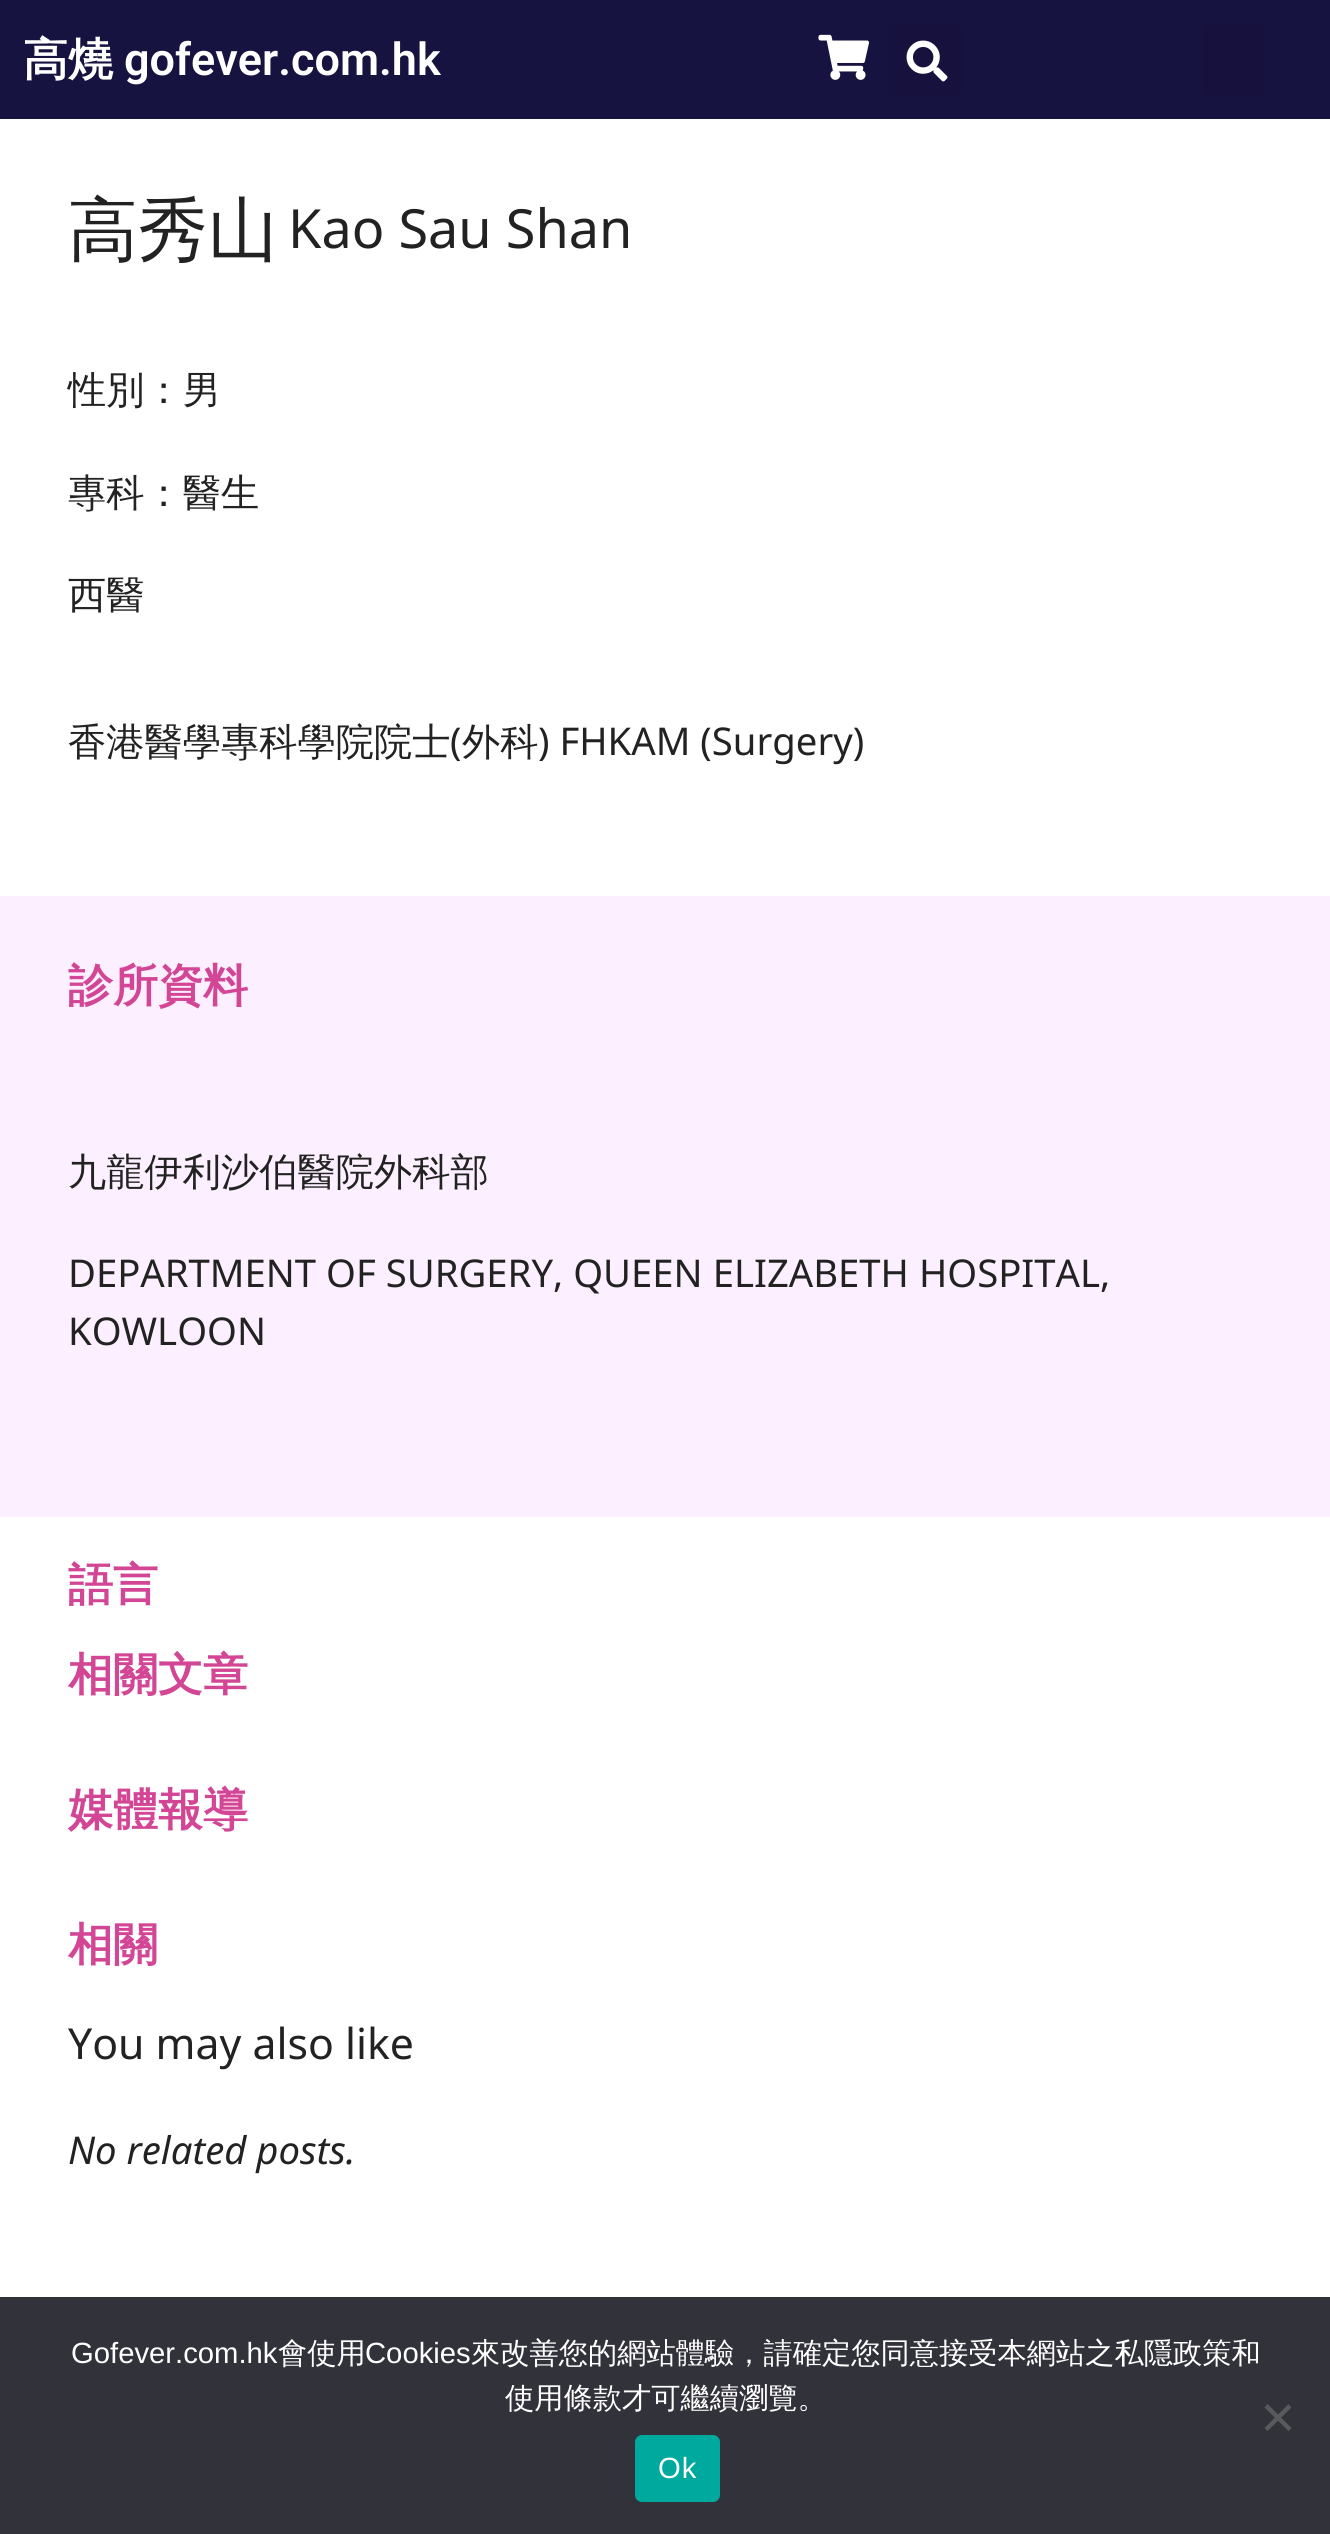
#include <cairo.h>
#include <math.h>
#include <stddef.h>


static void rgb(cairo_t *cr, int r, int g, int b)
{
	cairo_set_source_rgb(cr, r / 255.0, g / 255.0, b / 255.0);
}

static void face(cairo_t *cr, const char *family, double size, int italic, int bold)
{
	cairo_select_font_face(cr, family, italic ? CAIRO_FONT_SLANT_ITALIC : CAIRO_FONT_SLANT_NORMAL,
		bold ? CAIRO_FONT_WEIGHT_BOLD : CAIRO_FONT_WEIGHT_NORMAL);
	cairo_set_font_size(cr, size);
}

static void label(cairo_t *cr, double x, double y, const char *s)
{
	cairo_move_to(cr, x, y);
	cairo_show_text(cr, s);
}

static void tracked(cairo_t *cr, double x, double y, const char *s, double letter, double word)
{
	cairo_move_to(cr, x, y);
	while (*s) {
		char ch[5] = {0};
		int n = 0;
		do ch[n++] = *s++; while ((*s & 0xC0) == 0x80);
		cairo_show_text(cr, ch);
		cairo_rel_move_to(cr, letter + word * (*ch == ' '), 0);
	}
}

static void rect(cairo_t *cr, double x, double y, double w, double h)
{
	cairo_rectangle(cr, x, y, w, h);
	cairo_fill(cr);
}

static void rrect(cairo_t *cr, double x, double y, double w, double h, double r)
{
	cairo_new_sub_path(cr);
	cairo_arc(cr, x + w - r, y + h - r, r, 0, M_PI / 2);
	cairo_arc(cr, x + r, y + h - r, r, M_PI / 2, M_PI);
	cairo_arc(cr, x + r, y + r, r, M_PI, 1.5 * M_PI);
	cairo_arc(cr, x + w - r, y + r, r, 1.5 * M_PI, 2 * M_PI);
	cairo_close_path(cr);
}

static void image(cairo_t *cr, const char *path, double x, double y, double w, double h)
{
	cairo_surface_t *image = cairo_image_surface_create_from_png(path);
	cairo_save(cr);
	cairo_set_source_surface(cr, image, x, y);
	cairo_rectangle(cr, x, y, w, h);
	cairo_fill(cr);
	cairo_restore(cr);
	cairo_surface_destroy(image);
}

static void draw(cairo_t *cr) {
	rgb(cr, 255, 255, 255);
	cairo_paint(cr);
	rgb(cr, 23, 19, 64);
	rect(cr, 0, 0, 1330, 119);
	face(cr, "WenQuanYi Zen Hei", 45, 0, 1);
	rgb(cr, 255, 255, 255);
	label(cr, 23, 75, "高燒");
	face(cr, "Roboto SemiBold", 45, 0, 0);
	label(cr, 124, 75, "gofever.com.hk");
	image(cr, "image0.png", 818, 34, 51, 46);
	rgb(cr, 22, 18, 61);
	rrect(cr, 889, 23, 74, 74, 7);
	cairo_fill(cr);
	image(cr, "image1.png", 906, 40, 42, 42);
	rrect(cr, 1202, 23, 63, 74, 7);
	cairo_fill(cr);
	face(cr, "WenQuanYi Zen Hei Medium", 70, 0, 0);
	rgb(cr, 34, 34, 34);
	label(cr, 68, 254, "高秀山");
	face(cr, "Noto Sans", 54, 0, 0);
	label(cr, 288, 248, "Kao Sau Shan");
	face(cr, "WenQuanYi Zen Hei Medium", 38.25, 0, 0);
	label(cr, 68, 403, "性別：男");
	label(cr, 68, 506, "專科：醫生");
	label(cr, 68, 608, "西醫");
	label(cr, 68, 755, "香港醫學專科學院院士 外科");
	face(cr, "Noto Sans", 38.25, 0, 0);
	label(cr, 450, 755, "(");
	label(cr, 538, 755, ") FHKAM (Surgery)");
	rgb(cr, 252, 239, 255);
	rect(cr, 0, 896, 1330, 621);
	face(cr, "WenQuanYi Zen Hei", 45, 0, 1);
	rgb(cr, 211, 69, 149);
	label(cr, 68, 1001, "診所資料");
	face(cr, "WenQuanYi Zen Hei Medium", 38.25, 0, 0);
	rgb(cr, 34, 34, 34);
	label(cr, 68, 1185, "九龍伊利沙伯醫院外科部");
	face(cr, "Noto Sans", 38.25, 0, 0);
	label(cr, 68, 1287, "DEPARTMENT OF SURGERY, QUEEN ELIZABETH HOSPITAL,");
	label(cr, 68, 1345, "KOWLOON");
	face(cr, "WenQuanYi Zen Hei", 45, 0, 1);
	rgb(cr, 211, 69, 149);
	label(cr, 68, 1600, "語言");
	label(cr, 68, 1690, "相關文章");
	label(cr, 68, 1825, "媒體報導");
	label(cr, 68, 1960, "相關");
	face(cr, "Noto Sans", 42.75, 0, 0);
	rgb(cr, 34, 34, 34);
	label(cr, 68, 2059, "You may also like");
	face(cr, "Noto Sans", 38.25, 1, 0);
	label(cr, 68, 2164, "No related posts.");
	rgb(cr, 50, 50, 58);
	rect(cr, 0, 2297, 1330, 237);
	face(cr, "Liberation Sans", 29.25, 0, 0);
	rgb(cr, 255, 255, 255);
	label(cr, 71, 2363, "Gofever.com.hk");
	face(cr, "WenQuanYi Zen Hei Medium", 29.25, 0, 0);
	label(cr, 278, 2363, "會使用");
	face(cr, "Liberation Sans", 29.25, 0, 0);
	label(cr, 365, 2363, "Cookies");
	face(cr, "WenQuanYi Zen Hei Medium", 29.25, 0, 0);
	label(cr, 471, 2363, "來改善您的網站體驗，請確定您同意接受本網站之私隱政策和");
	label(cr, 505, 2408, "使用條款才可繼續瀏覽。");
	rgb(cr, 89, 89, 93);
	cairo_new_path(cr);
	cairo_move_to(cr, 1288.5, 2404);
	cairo_line_to(cr, 1291.5, 2407.5);
	cairo_line_to(cr, 1267.5, 2431);
	cairo_line_to(cr, 1264.5, 2428);
	cairo_close_path(cr);
	cairo_fill(cr);
	cairo_new_path(cr);
	cairo_move_to(cr, 1264.5, 2407.5);
	cairo_line_to(cr, 1267.5, 2404);
	cairo_line_to(cr, 1291.5, 2428);
	cairo_line_to(cr, 1288.5, 2431);
	cairo_close_path(cr);
	cairo_fill(cr);
	rgb(cr, 0, 169, 157);
	rrect(cr, 635, 2435, 85, 67, 7);
	cairo_fill(cr);
	face(cr, "Liberation Sans", 29.25, 0, 0);
	rgb(cr, 255, 255, 255);
	tracked(cr, 658, 2478, "Ok", 1, 0);
}

int main(void) {
	cairo_surface_t *surface = cairo_image_surface_create(CAIRO_FORMAT_RGB24, 1330, 2534);
	cairo_t *cr = cairo_create(surface);
	cairo_font_options_t *options = cairo_font_options_create();
	cairo_font_options_set_hint_metrics(options, CAIRO_HINT_METRICS_OFF);
	cairo_font_options_set_hint_style(options, CAIRO_HINT_STYLE_NONE);
	cairo_set_font_options(cr, options);
	cairo_set_miter_limit(cr, 4);
	draw(cr);
	cairo_surface_write_to_png(surface, "render.png");
	cairo_font_options_destroy(options);
	cairo_destroy(cr);
	cairo_surface_destroy(surface);
	return 0;
}
